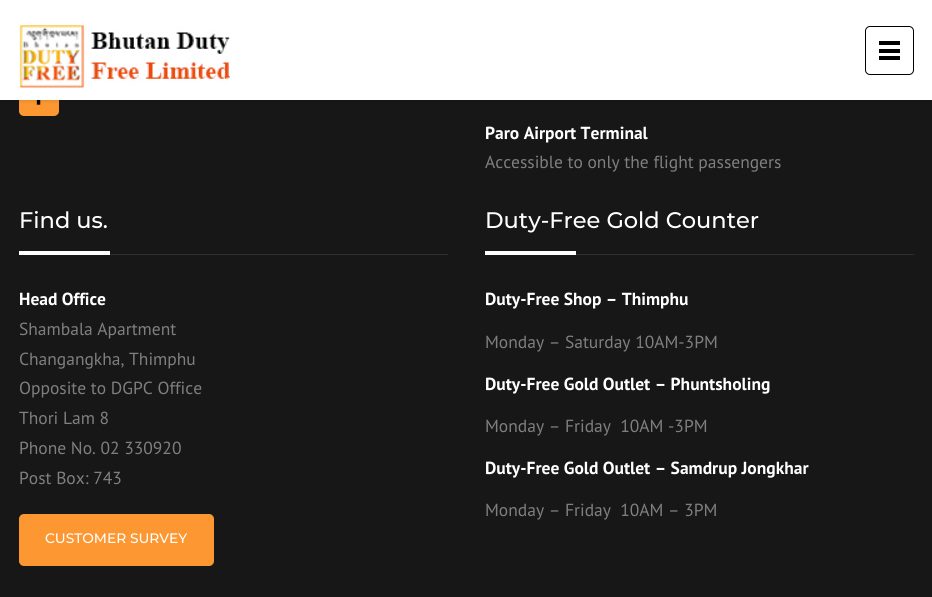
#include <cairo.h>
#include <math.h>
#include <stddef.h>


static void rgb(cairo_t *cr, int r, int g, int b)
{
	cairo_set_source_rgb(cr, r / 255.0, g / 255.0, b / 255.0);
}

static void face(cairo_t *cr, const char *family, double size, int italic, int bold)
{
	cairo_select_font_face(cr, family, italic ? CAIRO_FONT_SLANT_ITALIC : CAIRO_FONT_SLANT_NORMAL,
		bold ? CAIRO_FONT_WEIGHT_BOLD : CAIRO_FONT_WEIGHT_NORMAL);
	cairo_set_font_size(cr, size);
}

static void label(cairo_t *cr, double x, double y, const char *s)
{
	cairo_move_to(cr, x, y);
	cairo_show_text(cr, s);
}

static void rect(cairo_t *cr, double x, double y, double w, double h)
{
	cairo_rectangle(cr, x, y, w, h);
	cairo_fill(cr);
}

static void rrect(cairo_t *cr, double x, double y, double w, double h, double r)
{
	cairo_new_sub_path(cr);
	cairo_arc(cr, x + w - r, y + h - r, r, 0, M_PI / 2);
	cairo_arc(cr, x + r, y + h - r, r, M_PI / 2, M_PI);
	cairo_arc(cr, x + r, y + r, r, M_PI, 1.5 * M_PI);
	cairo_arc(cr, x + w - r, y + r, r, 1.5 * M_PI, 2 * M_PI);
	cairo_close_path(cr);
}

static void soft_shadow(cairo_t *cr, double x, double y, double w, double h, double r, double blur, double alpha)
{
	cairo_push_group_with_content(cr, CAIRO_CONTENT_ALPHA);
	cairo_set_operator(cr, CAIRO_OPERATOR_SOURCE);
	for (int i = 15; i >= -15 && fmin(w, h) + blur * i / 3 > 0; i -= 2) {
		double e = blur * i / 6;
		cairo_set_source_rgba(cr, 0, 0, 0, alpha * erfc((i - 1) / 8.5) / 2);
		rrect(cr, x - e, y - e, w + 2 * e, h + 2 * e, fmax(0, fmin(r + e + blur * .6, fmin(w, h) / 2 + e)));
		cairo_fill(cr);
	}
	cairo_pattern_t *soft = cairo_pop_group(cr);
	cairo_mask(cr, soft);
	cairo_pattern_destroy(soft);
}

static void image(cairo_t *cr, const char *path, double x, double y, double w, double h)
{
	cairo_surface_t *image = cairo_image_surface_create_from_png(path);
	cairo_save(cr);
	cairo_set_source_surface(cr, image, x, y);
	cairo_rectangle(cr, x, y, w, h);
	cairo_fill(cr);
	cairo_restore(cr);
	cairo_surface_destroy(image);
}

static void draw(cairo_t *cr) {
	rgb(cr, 23, 23, 23);
	cairo_paint(cr);
	rgb(cr, 252, 151, 50);
	rrect(cr, 19, 76, 40, 40, 5);
	cairo_fill(cr);
	image(cr, "image1.png", 36, 100, 5, 5);
	rgb(cr, 0, 0, 0);
	soft_shadow(cr, 1, 0, 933, 100, 0, 2.5, 0.15);
	rgb(cr, 255, 255, 255);
	rect(cr, 0, 0, 932, 100);
	image(cr, "image0.png", 19, 25, 211, 63);
	rrect(cr, 865.5, 26.5, 48, 48, 4.5);
	rgb(cr, 0, 0, 0);
	cairo_set_line_width(cr, 1);
	cairo_stroke(cr);
	rect(cr, 879, 41, 21, 4);
	rect(cr, 879, 49, 21, 4);
	rect(cr, 879, 56, 21, 4);
	face(cr, "PT Sans", 17.5, 0, 1);
	rgb(cr, 255, 255, 255);
	label(cr, 485, 139, "Paro Airport Terminal");
	face(cr, "PT Sans", 17.5, 0, 0);
	rgb(cr, 127, 127, 127);
	label(cr, 485, 168, "Accessible to only the flight passengers");
	rgb(cr, 46, 46, 46);
	rect(cr, 110, 254, 338, 1);
	face(cr, "Montserrat Medium", 22.5, 0, 0);
	rgb(cr, 255, 255, 255);
	label(cr, 19, 228, "Find us.");
	rect(cr, 19, 251, 91, 4);
	face(cr, "PT Sans", 17.5, 0, 1);
	label(cr, 19, 305, "Head Office");
	face(cr, "PT Sans", 17.5, 0, 0);
	rgb(cr, 127, 127, 127);
	label(cr, 19, 335, "Shambala Apartment");
	label(cr, 19, 365, "Changangkha, Thimphu");
	label(cr, 19, 394, "Opposite to DGPC Office");
	label(cr, 19, 424, "Thori Lam 8");
	label(cr, 19, 454, "Phone No. 02 330920");
	label(cr, 19, 484, "Post Box: 743");
	rgb(cr, 252, 151, 50);
	rrect(cr, 19, 514, 195, 52, 5);
	cairo_fill(cr);
	face(cr, "Montserrat Medium", 13.75, 0, 0);
	rgb(cr, 255, 255, 255);
	label(cr, 45, 543, "CUSTOMER SURVEY");
	rgb(cr, 46, 46, 46);
	rect(cr, 576, 254, 338, 1);
	face(cr, "Montserrat Medium", 22.5, 0, 0);
	rgb(cr, 255, 255, 255);
	label(cr, 485, 228, "Duty-Free Gold Counter");
	rect(cr, 485, 251, 91, 4);
	face(cr, "PT Sans", 17.5, 0, 1);
	label(cr, 485, 305, "Duty-Free Shop – Thimphu");
	face(cr, "PT Sans", 17.5, 0, 0);
	rgb(cr, 127, 127, 127);
	label(cr, 485, 348, "Monday – Saturday 10AM-3PM");
	face(cr, "PT Sans", 17.5, 0, 1);
	rgb(cr, 255, 255, 255);
	label(cr, 485, 390, "Duty-Free Gold Outlet – Phuntsholing");
	face(cr, "PT Sans", 17.5, 0, 0);
	rgb(cr, 127, 127, 127);
	label(cr, 485, 432, "Monday – Friday  10AM -3PM");
	face(cr, "PT Sans", 17.5, 0, 1);
	rgb(cr, 255, 255, 255);
	label(cr, 485, 474, "Duty-Free Gold Outlet – Samdrup Jongkhar");
	face(cr, "PT Sans", 17.5, 0, 0);
	rgb(cr, 127, 127, 127);
	label(cr, 485, 516, "Monday – Friday  10AM – 3PM");
}

int main(void) {
	cairo_surface_t *surface = cairo_image_surface_create(CAIRO_FORMAT_RGB24, 932, 597);
	cairo_t *cr = cairo_create(surface);
	cairo_font_options_t *options = cairo_font_options_create();
	cairo_font_options_set_hint_metrics(options, CAIRO_HINT_METRICS_OFF);
	cairo_font_options_set_hint_style(options, CAIRO_HINT_STYLE_NONE);
	cairo_set_font_options(cr, options);
	cairo_set_miter_limit(cr, 4);
	draw(cr);
	cairo_surface_write_to_png(surface, "render.png");
	cairo_font_options_destroy(options);
	cairo_destroy(cr);
	cairo_surface_destroy(surface);
	return 0;
}
